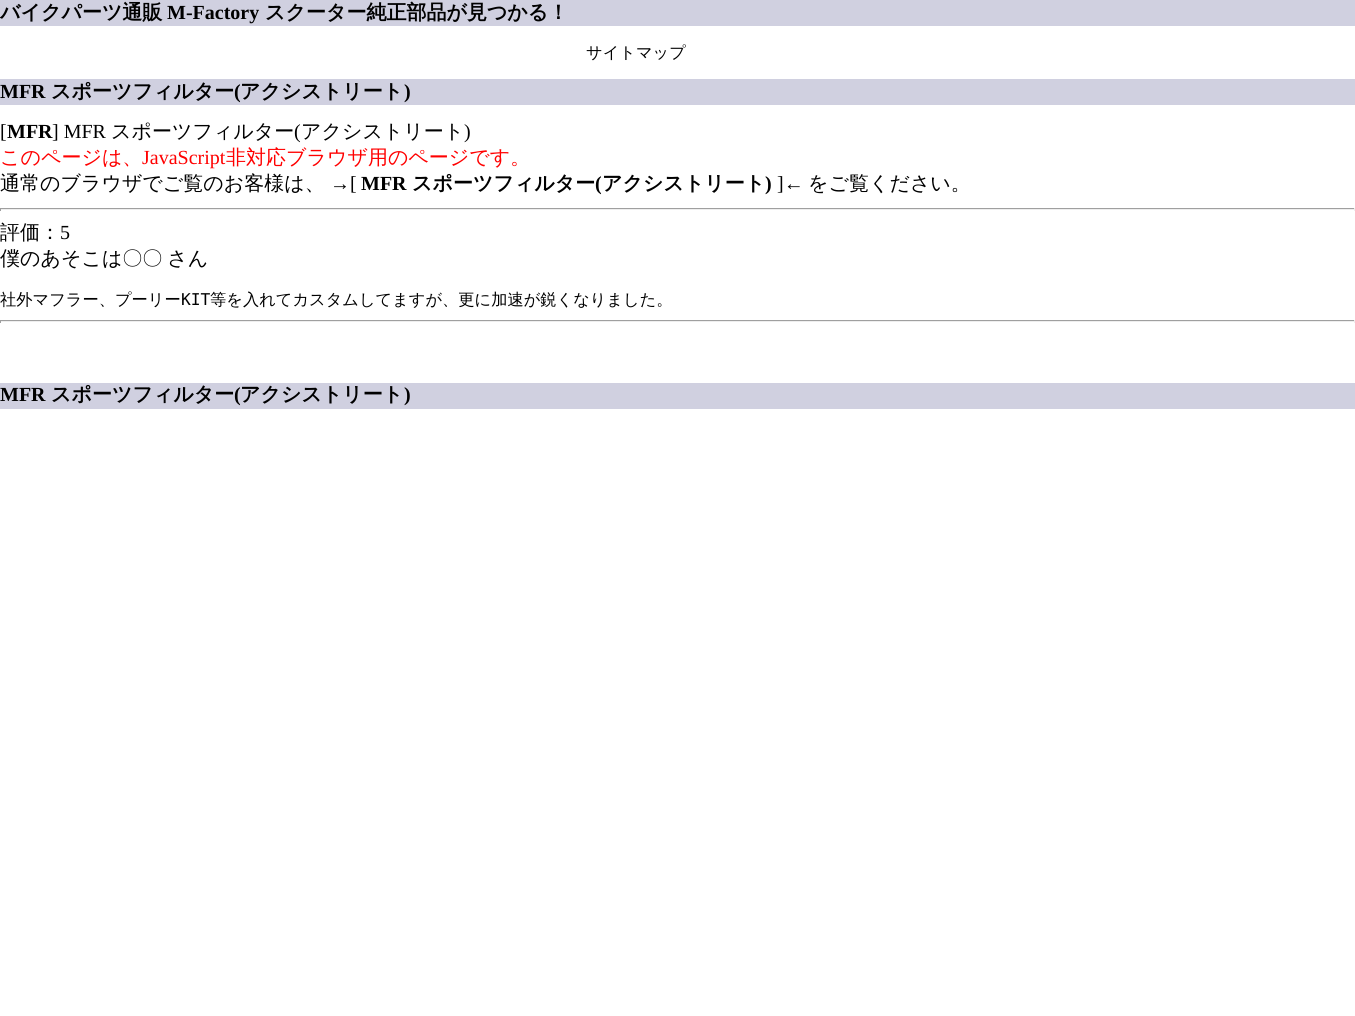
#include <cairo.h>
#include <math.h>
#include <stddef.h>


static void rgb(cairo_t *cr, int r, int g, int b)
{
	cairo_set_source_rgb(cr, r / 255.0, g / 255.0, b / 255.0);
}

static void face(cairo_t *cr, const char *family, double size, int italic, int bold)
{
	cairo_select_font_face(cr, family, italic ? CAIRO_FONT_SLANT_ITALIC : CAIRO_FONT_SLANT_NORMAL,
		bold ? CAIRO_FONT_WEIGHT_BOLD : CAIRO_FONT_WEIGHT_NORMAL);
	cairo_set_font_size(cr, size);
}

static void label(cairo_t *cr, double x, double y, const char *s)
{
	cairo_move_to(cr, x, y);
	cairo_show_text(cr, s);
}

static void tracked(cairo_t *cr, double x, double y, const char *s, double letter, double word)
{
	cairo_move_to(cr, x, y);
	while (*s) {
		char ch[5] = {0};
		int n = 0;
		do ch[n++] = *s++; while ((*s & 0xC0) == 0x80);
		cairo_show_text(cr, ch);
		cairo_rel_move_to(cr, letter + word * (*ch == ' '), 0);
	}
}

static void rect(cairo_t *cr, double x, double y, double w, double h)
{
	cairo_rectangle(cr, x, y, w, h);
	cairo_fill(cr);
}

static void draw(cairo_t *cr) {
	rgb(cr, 255, 255, 255);
	cairo_paint(cr);
	rgb(cr, 208, 208, 224);
	rect(cr, 0, 0, 1355, 26);
	face(cr, "WenQuanYi Zen Hei", 20, 0, 1);
	rgb(cr, 0, 0, 0);
	label(cr, 0, 19, "バイクパーツ通販");
	face(cr, "Liberation Serif", 20, 0, 1);
	label(cr, 167, 19, "M-Factory");
	face(cr, "WenQuanYi Zen Hei", 20, 0, 1);
	label(cr, 265, 19, "スクーター純正部品が見つかる！");
	face(cr, "WenQuanYi Zen Hei Medium", 16.25, 0, 0);
	label(cr, 586, 58, "サイトマップ");
	rgb(cr, 208, 208, 224);
	rect(cr, 0, 79, 1355, 26);
	face(cr, "Liberation Serif", 20, 0, 1);
	rgb(cr, 0, 0, 0);
	label(cr, 0, 98, "MFR");
	face(cr, "WenQuanYi Zen Hei", 20, 0, 1);
	label(cr, 51, 98, "スポーツフィルター");
	face(cr, "Liberation Serif", 20, 0, 1);
	label(cr, 234, 98, "(");
	face(cr, "WenQuanYi Zen Hei", 20, 0, 1);
	label(cr, 240, 98, "アクシストリート");
	face(cr, "Liberation Serif", 20, 0, 1);
	label(cr, 404, 98, ")");
	face(cr, "Liberation Serif", 20, 0, 0);
	label(cr, 0, 138, "[");
	face(cr, "Liberation Serif", 20, 0, 1);
	label(cr, 7, 138, "MFR");
	face(cr, "Liberation Serif", 20, 0, 0);
	label(cr, 52, 138, "] MFR");
	face(cr, "WenQuanYi Zen Hei Medium", 20, 0, 0);
	label(cr, 111, 138, "スポーツフィルター");
	face(cr, "Liberation Serif", 20, 0, 0);
	label(cr, 294, 138, "(");
	face(cr, "WenQuanYi Zen Hei Medium", 20, 0, 0);
	label(cr, 301, 138, "アクシストリート");
	face(cr, "Liberation Serif", 20, 0, 0);
	label(cr, 464, 138, ")");
	face(cr, "WenQuanYi Zen Hei Medium", 20, 0, 0);
	rgb(cr, 255, 0, 0);
	label(cr, 0, 164, "このページは、");
	face(cr, "Liberation Serif", 20, 0, 0);
	label(cr, 142, 164, "JavaScript");
	face(cr, "WenQuanYi Zen Hei Medium", 20, 0, 0);
	label(cr, 226, 164, "非対応ブラウザ用のページです。");
	rgb(cr, 0, 0, 0);
	label(cr, 0, 190, "通常のブラウザでご覧のお客様は、");
	face(cr, "Liberation Serif", 20, 0, 0);
	label(cr, 330, 190, "→[");
	face(cr, "Liberation Serif", 20, 0, 1);
	label(cr, 361, 190, "MFR");
	face(cr, "WenQuanYi Zen Hei", 20, 0, 1);
	label(cr, 412, 190, "スポーツフィルター");
	face(cr, "Liberation Serif", 20, 0, 1);
	label(cr, 595, 190, "(");
	face(cr, "WenQuanYi Zen Hei", 20, 0, 1);
	label(cr, 602, 190, "アクシストリート");
	face(cr, "Liberation Serif", 20, 0, 1);
	label(cr, 765, 190, ")");
	face(cr, "Liberation Serif", 20, 0, 0);
	label(cr, 777, 190, "]←");
	face(cr, "WenQuanYi Zen Hei Medium", 20, 0, 0);
	label(cr, 808, 190, "をご覧ください。");
	rgb(cr, 159, 159, 159);
	rect(cr, 0, 208, 1355, 1);
	rgb(cr, 238, 238, 238);
	rect(cr, 1354, 208, 1, 3);
	rect(cr, 0, 209, 1355, 1);
	rgb(cr, 159, 159, 159);
	rect(cr, 0, 208, 1, 3);
	rgb(cr, 0, 0, 0);
	label(cr, 0, 239, "評価：");
	face(cr, "Liberation Serif", 20, 0, 0);
	label(cr, 60, 239, "5");
	face(cr, "WenQuanYi Zen Hei Medium", 20, 0, 0);
	tracked(cr, 0, 265, "僕のあそこは〇〇 さん", 0, -1);
	face(cr, "WenQuanYi Zen Hei Medium", 16.25, 0, 0);
	label(cr, 0, 305, "社外マフラー、プーリー");
	face(cr, "DejaVu Sans Mono", 16.25, 0, 0);
	label(cr, 181, 305, "KIT");
	face(cr, "WenQuanYi Zen Hei Medium", 16.25, 0, 0);
	label(cr, 210, 305, "等を入れてカスタムしてますが、更に加速が鋭くなりました。");
	rgb(cr, 159, 159, 159);
	rect(cr, 0, 320, 1355, 1);
	rgb(cr, 238, 238, 238);
	rect(cr, 1354, 320, 1, 3);
	rect(cr, 0, 321, 1355, 1);
	rgb(cr, 159, 159, 159);
	rect(cr, 0, 320, 1, 3);
	rgb(cr, 208, 208, 224);
	rect(cr, 0, 383, 1355, 26);
	face(cr, "Liberation Serif", 20, 0, 1);
	rgb(cr, 0, 0, 0);
	label(cr, 0, 401, "MFR");
	face(cr, "WenQuanYi Zen Hei", 20, 0, 1);
	label(cr, 51, 401, "スポーツフィルター");
	face(cr, "Liberation Serif", 20, 0, 1);
	label(cr, 234, 401, "(");
	face(cr, "WenQuanYi Zen Hei", 20, 0, 1);
	label(cr, 240, 401, "アクシストリート");
	face(cr, "Liberation Serif", 20, 0, 1);
	label(cr, 404, 401, ")");
}

int main(void) {
	cairo_surface_t *surface = cairo_image_surface_create(CAIRO_FORMAT_RGB24, 1355, 1016);
	cairo_t *cr = cairo_create(surface);
	cairo_font_options_t *options = cairo_font_options_create();
	cairo_font_options_set_hint_metrics(options, CAIRO_HINT_METRICS_OFF);
	cairo_font_options_set_hint_style(options, CAIRO_HINT_STYLE_NONE);
	cairo_set_font_options(cr, options);
	cairo_set_miter_limit(cr, 4);
	draw(cr);
	cairo_surface_write_to_png(surface, "render.png");
	cairo_font_options_destroy(options);
	cairo_destroy(cr);
	cairo_surface_destroy(surface);
	return 0;
}
